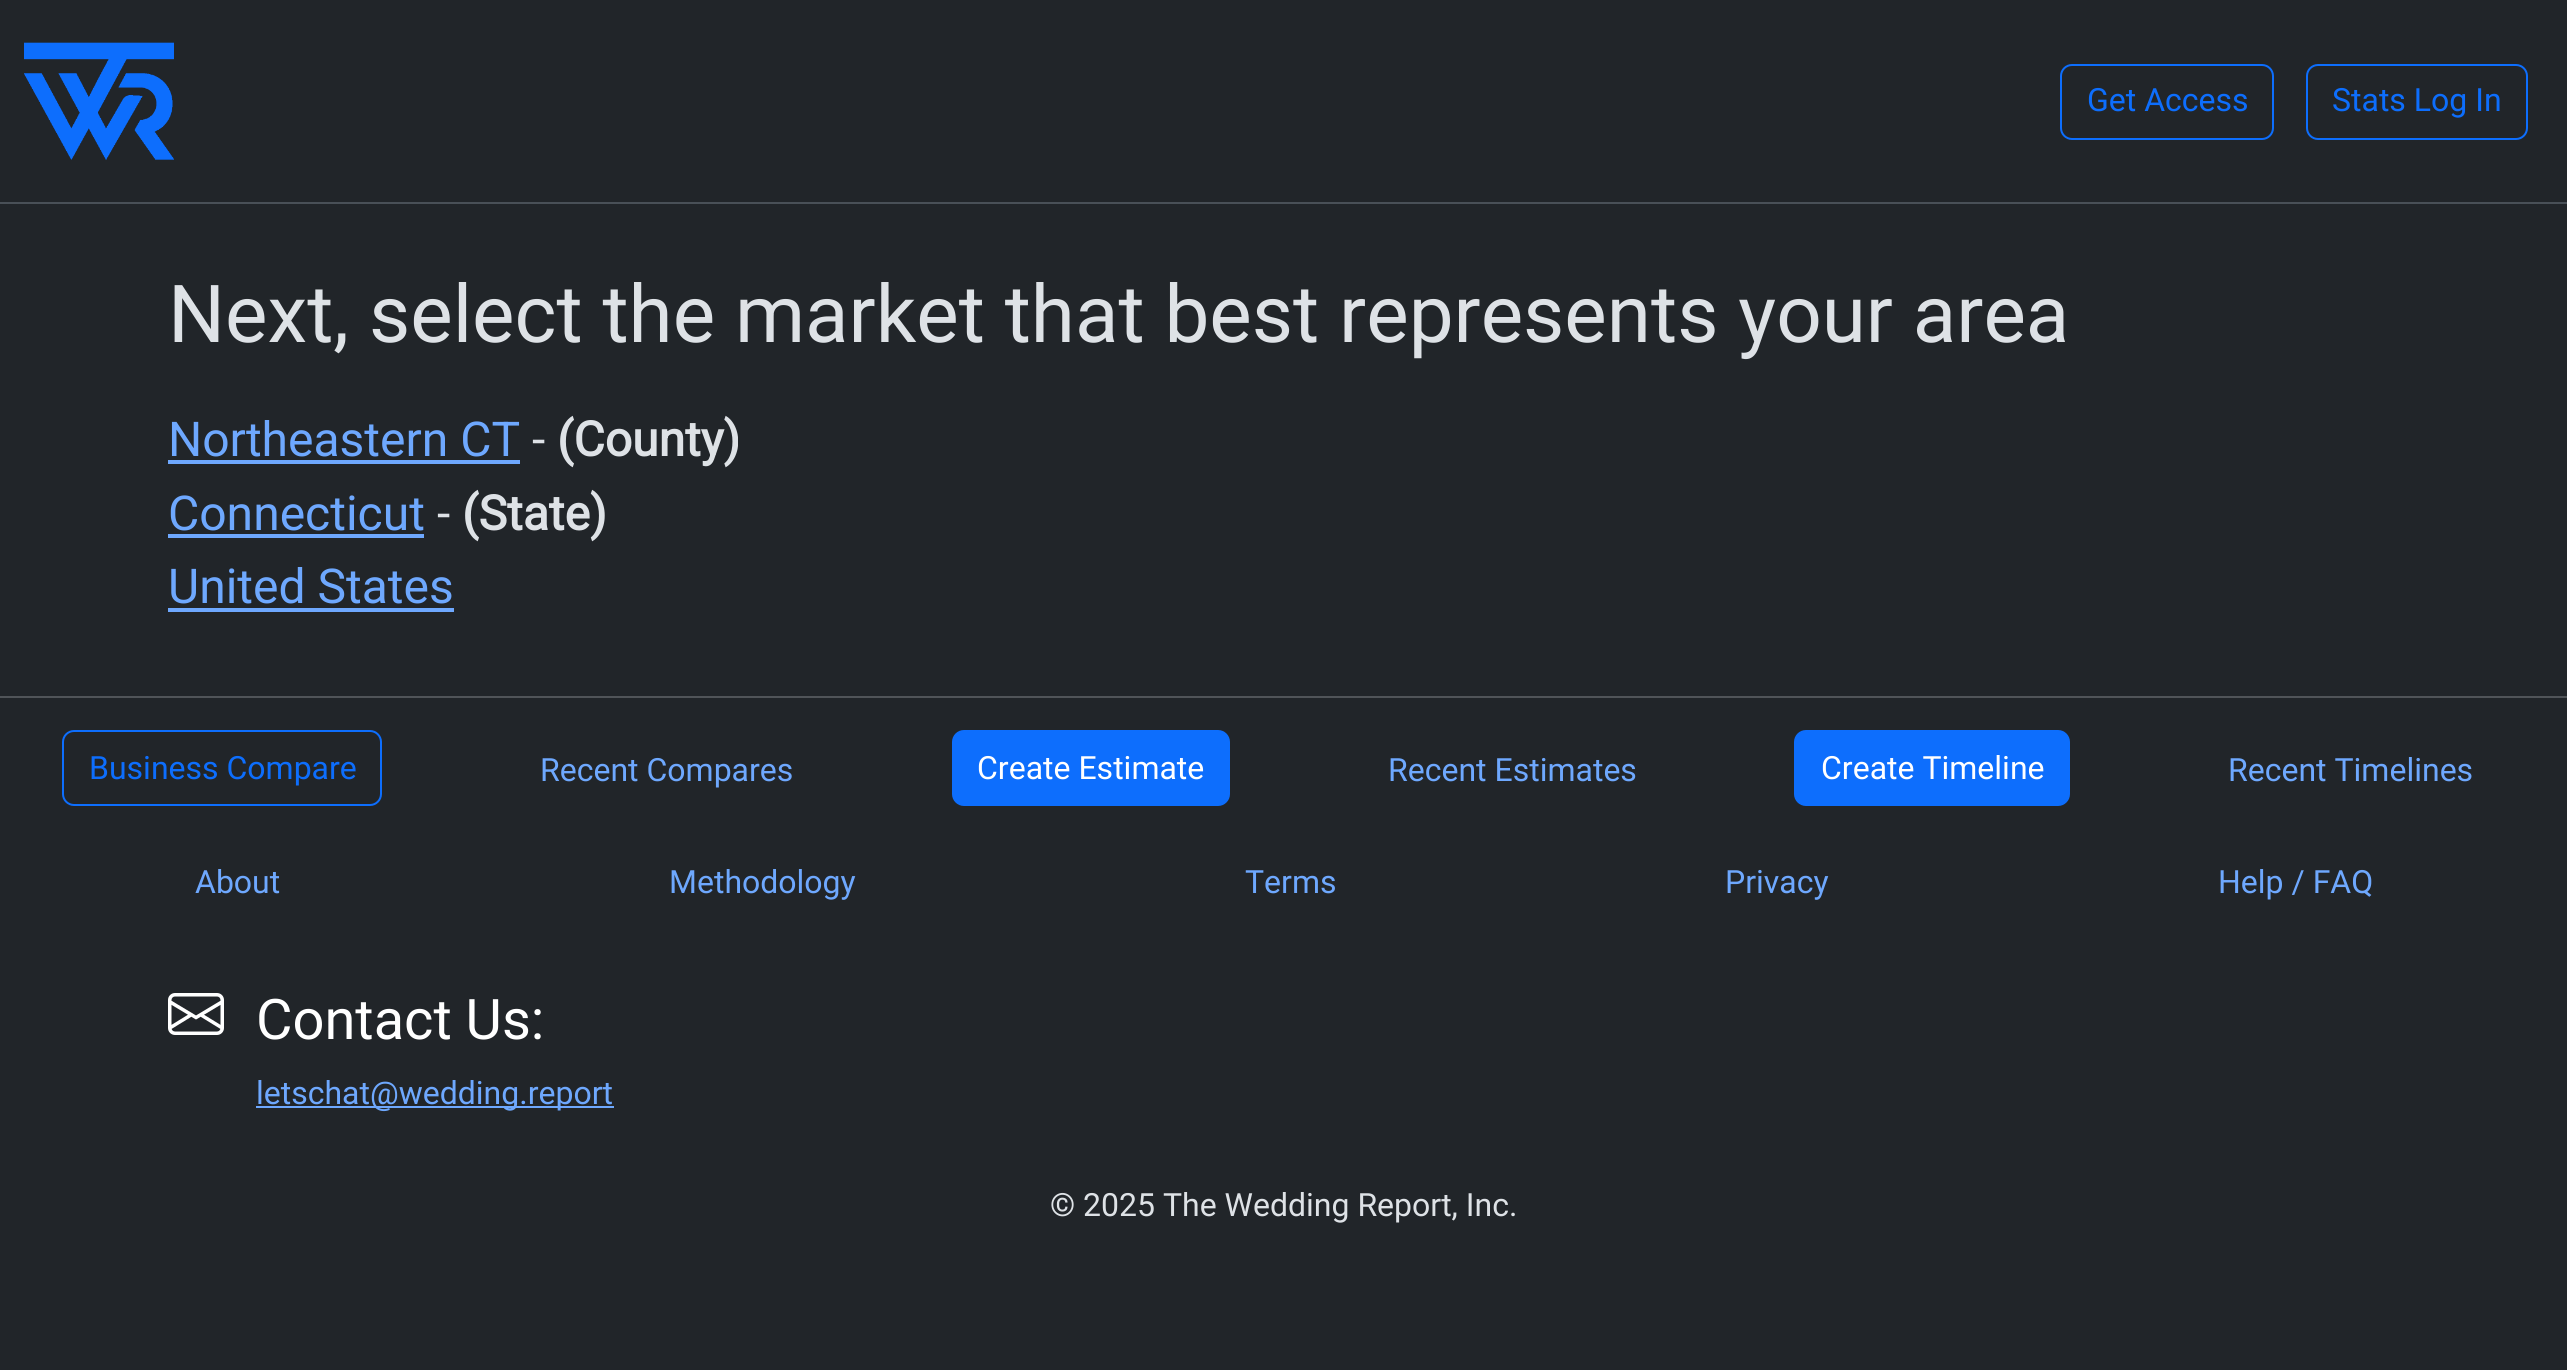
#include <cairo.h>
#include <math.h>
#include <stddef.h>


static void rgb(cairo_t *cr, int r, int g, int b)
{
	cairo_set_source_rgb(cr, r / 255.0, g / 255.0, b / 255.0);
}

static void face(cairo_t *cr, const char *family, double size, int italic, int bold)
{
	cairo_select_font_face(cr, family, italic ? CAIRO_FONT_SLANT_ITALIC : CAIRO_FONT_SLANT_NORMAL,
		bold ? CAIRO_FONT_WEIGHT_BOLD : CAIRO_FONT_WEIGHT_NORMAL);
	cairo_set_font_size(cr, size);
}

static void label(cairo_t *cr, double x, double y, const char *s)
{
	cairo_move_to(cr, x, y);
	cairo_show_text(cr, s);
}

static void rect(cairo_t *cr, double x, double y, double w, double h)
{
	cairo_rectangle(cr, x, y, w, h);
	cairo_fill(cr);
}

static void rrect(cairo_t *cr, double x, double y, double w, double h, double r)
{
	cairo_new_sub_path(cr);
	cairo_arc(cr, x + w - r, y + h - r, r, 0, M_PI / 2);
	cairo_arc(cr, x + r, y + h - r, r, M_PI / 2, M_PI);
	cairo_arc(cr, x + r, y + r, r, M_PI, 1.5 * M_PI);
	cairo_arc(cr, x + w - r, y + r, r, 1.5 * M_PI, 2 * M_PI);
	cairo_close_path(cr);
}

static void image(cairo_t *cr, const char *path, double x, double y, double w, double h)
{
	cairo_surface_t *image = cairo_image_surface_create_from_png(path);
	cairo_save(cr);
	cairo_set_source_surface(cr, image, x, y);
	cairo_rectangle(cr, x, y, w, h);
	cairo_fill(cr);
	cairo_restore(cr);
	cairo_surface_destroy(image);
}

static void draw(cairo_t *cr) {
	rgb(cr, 33, 37, 41);
	cairo_paint(cr);
	rgb(cr, 73, 80, 87);
	rect(cr, 0, 202, 2567, 2);
	image(cr, "image0.png", 24, 42, 150, 118);
	rrect(cr, 2061, 65, 212, 74, 11);
	rgb(cr, 13, 110, 253);
	cairo_stroke(cr);
	face(cr, "Roboto", 32, 0, 0);
	label(cr, 2087, 111, "Get Access");
	rrect(cr, 2307, 65, 220, 74, 11);
	cairo_stroke(cr);
	label(cr, 2332, 111, "Stats Log In");
	face(cr, "Roboto", 80, 0, 0);
	rgb(cr, 222, 226, 230);
	label(cr, 168, 342, "Next, select the market that best represents your area");
	face(cr, "Roboto", 48, 0, 0);
	rgb(cr, 110, 168, 254);
	label(cr, 168, 456, "Northeastern CT");
	rect(cr, 168, 460, 352, 4);
	rgb(cr, 222, 226, 230);
	label(cr, 532, 456, "-");
	face(cr, "Roboto", 48, 0, 1);
	label(cr, 557, 456, "(County)");
	face(cr, "Roboto", 48, 0, 0);
	rgb(cr, 110, 168, 254);
	label(cr, 168, 530, "Connecticut");
	rect(cr, 168, 534, 256, 4);
	rgb(cr, 222, 226, 230);
	label(cr, 437, 530, "-");
	face(cr, "Roboto", 48, 0, 1);
	label(cr, 462, 530, "(State)");
	face(cr, "Roboto", 48, 0, 0);
	rgb(cr, 110, 168, 254);
	label(cr, 168, 603, "United States");
	rect(cr, 168, 608, 286, 4);
	rgb(cr, 80, 84, 88);
	rect(cr, 0, 696, 2567, 2);
	rrect(cr, 63, 731, 318, 74, 11);
	rgb(cr, 13, 110, 253);
	cairo_stroke(cr);
	face(cr, "Roboto", 32, 0, 0);
	label(cr, 89, 779, "Business Compare");
	rgb(cr, 110, 168, 254);
	label(cr, 540, 781, "Recent Compares");
	rgb(cr, 13, 110, 253);
	rrect(cr, 953, 731, 276, 74, 11);
	cairo_fill_preserve(cr);
	cairo_stroke(cr);
	rgb(cr, 255, 255, 255);
	label(cr, 977, 779, "Create Estimate");
	rgb(cr, 110, 168, 254);
	label(cr, 1388, 781, "Recent Estimates");
	rgb(cr, 13, 110, 253);
	rrect(cr, 1795, 731, 274, 74, 11);
	cairo_fill_preserve(cr);
	cairo_stroke(cr);
	rgb(cr, 255, 255, 255);
	label(cr, 1821, 779, "Create Timeline");
	rgb(cr, 110, 168, 254);
	label(cr, 2228, 781, "Recent Timelines");
	label(cr, 195, 893, "About");
	label(cr, 669, 893, "Methodology");
	label(cr, 1245, 893, "Terms");
	label(cr, 1725, 893, "Privacy");
	label(cr, 2218, 893, "Help / FAQ");
	image(cr, "image1.png", 168, 993, 56, 42);
	face(cr, "Roboto", 56, 0, 0);
	rgb(cr, 255, 255, 255);
	label(cr, 256, 1039, "Contact Us:");
	rgb(cr, 110, 168, 254);
	rect(cr, 256, 1106, 358, 2);
	face(cr, "Roboto", 32, 0, 0);
	label(cr, 256, 1104, "letschat@wedding.report");
	rgb(cr, 222, 226, 230);
	label(cr, 1050, 1216, "© 2025 The Wedding Report, Inc.");
}

int main(void) {
	cairo_surface_t *surface = cairo_image_surface_create(CAIRO_FORMAT_RGB24, 2567, 1370);
	cairo_t *cr = cairo_create(surface);
	cairo_font_options_t *options = cairo_font_options_create();
	cairo_font_options_set_hint_metrics(options, CAIRO_HINT_METRICS_OFF);
	cairo_font_options_set_hint_style(options, CAIRO_HINT_STYLE_NONE);
	cairo_set_font_options(cr, options);
	cairo_set_miter_limit(cr, 4);
	draw(cr);
	cairo_surface_write_to_png(surface, "render.png");
	cairo_font_options_destroy(options);
	cairo_destroy(cr);
	cairo_surface_destroy(surface);
	return 0;
}
